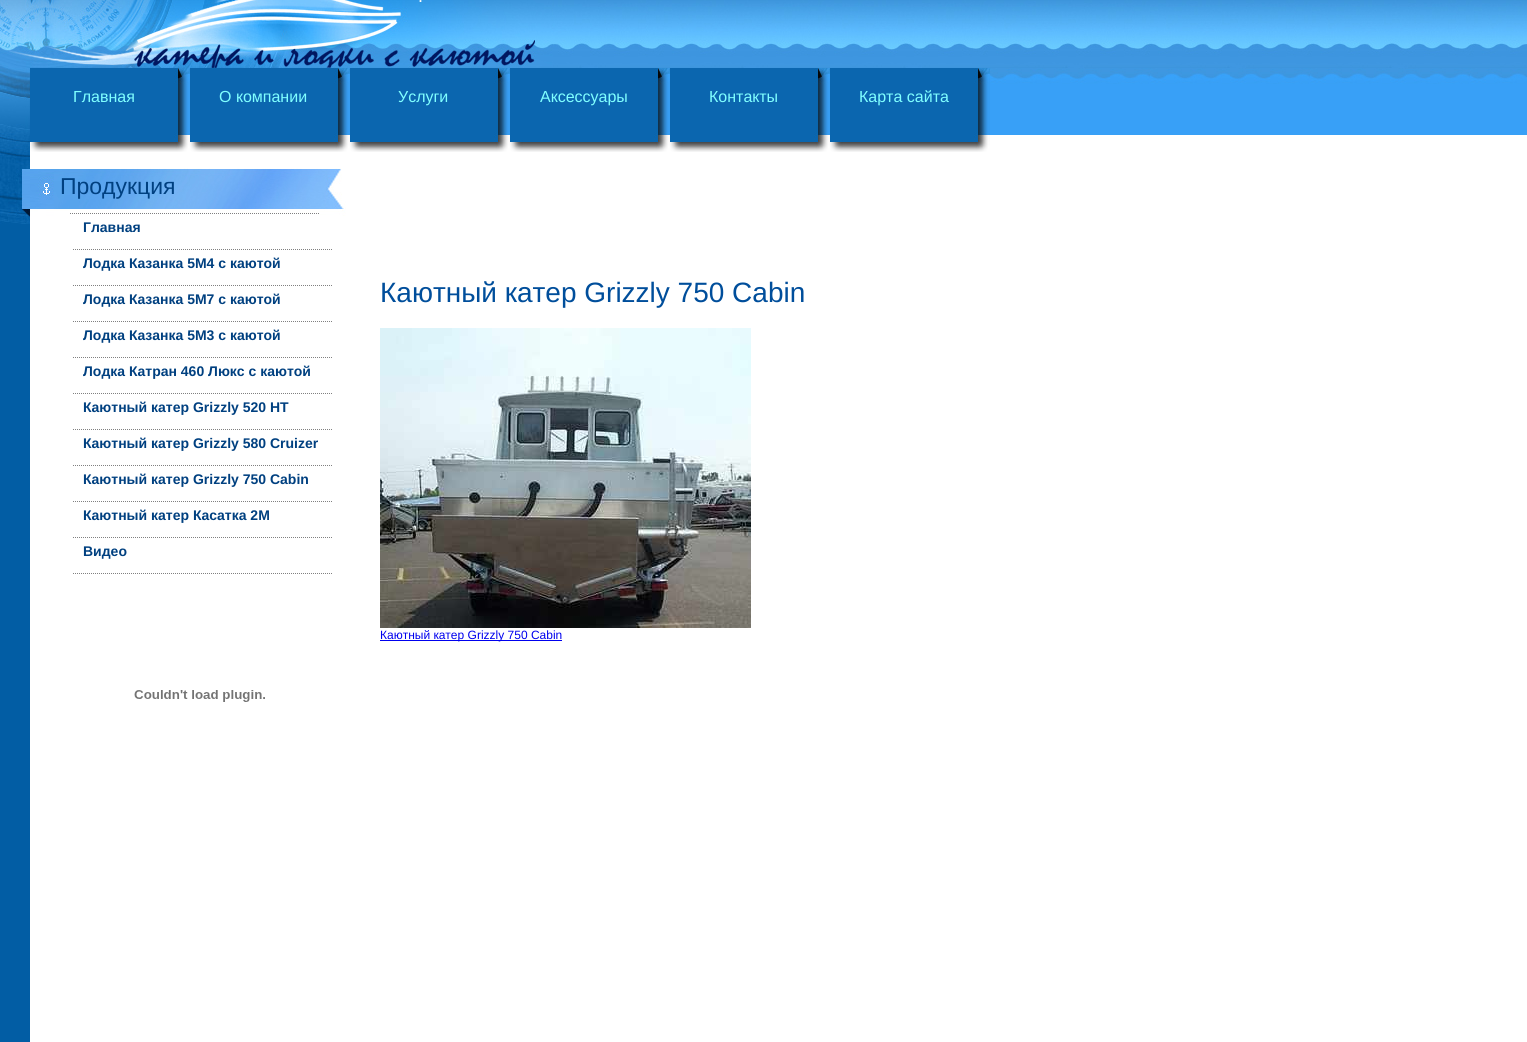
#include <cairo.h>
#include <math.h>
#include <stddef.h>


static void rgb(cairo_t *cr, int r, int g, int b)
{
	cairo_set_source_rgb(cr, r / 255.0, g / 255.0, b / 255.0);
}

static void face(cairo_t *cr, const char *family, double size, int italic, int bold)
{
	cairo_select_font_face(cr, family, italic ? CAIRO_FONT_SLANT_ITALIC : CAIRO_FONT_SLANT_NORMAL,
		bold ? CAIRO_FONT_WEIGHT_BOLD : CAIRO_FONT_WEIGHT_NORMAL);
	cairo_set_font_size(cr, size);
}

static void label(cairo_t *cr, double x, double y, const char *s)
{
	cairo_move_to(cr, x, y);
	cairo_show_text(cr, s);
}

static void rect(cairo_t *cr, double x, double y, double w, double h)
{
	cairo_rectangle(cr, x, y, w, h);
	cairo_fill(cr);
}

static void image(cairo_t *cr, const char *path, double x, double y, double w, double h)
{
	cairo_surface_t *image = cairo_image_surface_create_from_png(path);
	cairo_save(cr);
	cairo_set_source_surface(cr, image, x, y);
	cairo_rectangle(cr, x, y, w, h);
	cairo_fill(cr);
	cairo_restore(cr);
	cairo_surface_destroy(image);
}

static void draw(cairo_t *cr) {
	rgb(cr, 255, 255, 255);
	cairo_paint(cr);
	image(cr, "image0.png", 553, 0, 974, 68);
	image(cr, "image1.png", 0, 0, 553, 68);
	face(cr, "Liberation Sans", 18, 0, 0);
	rgb(cr, 255, 255, 255);
	label(cr, 418, 2, ".");
	image(cr, "image2.png", 0, 68, 30, 100);
	image(cr, "image3.png", 30, 68, 1497, 100);
	image(cr, "image4.png", 30, 68, 160, 84);
	face(cr, "Liberation Sans", 16, 0, 0);
	rgb(cr, 128, 255, 255);
	label(cr, 73, 102, "Главная");
	image(cr, "image4.png", 190, 68, 160, 84);
	label(cr, 219, 102, "О компании");
	image(cr, "image4.png", 350, 68, 160, 84);
	label(cr, 398, 102, "Услуги");
	image(cr, "image4.png", 510, 68, 160, 84);
	label(cr, 540, 102, "Аксессуары");
	image(cr, "image4.png", 670, 68, 160, 84);
	label(cr, 709, 102, "Контакты");
	image(cr, "image4.png", 830, 68, 160, 84);
	label(cr, 859, 102, "Карта сайта");
	rgb(cr, 2, 93, 164);
	rect(cr, 0, 224, 30, 818);
	image(cr, "image5.png", 0, 168, 30, 56);
	image(cr, "image6.png", 30, 168, 316, 48);
	face(cr, "Liberation Sans", 23, 0, 0);
	rgb(cr, 0, 64, 128);
	label(cr, 60, 194, "Продукция");
	cairo_new_path(cr);
	cairo_move_to(cr, 70, 213.5);
	cairo_line_to(cr, 320, 213.5);
	rgb(cr, 128, 128, 128);
	cairo_set_line_width(cr, 1);
	cairo_set_dash(cr, (double[]){1, 1}, 2, 0);
	cairo_stroke(cr);
	cairo_new_path(cr);
	cairo_move_to(cr, 73, 249.5);
	cairo_line_to(cr, 333, 249.5);
	cairo_stroke(cr);
	face(cr, "Liberation Sans", 14, 0, 1);
	rgb(cr, 0, 64, 128);
	label(cr, 83, 232, "Главная");
	cairo_new_path(cr);
	cairo_move_to(cr, 73, 285.5);
	cairo_line_to(cr, 333, 285.5);
	rgb(cr, 128, 128, 128);
	cairo_stroke(cr);
	rgb(cr, 0, 64, 128);
	label(cr, 83, 268, "Лодка Казанка 5М4 с каютой");
	cairo_new_path(cr);
	cairo_move_to(cr, 73, 321.5);
	cairo_line_to(cr, 333, 321.5);
	rgb(cr, 128, 128, 128);
	cairo_stroke(cr);
	rgb(cr, 0, 64, 128);
	label(cr, 83, 304, "Лодка Казанка 5М7 с каютой");
	cairo_new_path(cr);
	cairo_move_to(cr, 73, 357.5);
	cairo_line_to(cr, 333, 357.5);
	rgb(cr, 128, 128, 128);
	cairo_stroke(cr);
	rgb(cr, 0, 64, 128);
	label(cr, 83, 340, "Лодка Казанка 5М3 с каютой");
	cairo_new_path(cr);
	cairo_move_to(cr, 73, 393.5);
	cairo_line_to(cr, 333, 393.5);
	rgb(cr, 128, 128, 128);
	cairo_stroke(cr);
	rgb(cr, 0, 64, 128);
	label(cr, 83, 376, "Лодка Катран 460 Люкс с каютой");
	cairo_new_path(cr);
	cairo_move_to(cr, 73, 429.5);
	cairo_line_to(cr, 333, 429.5);
	rgb(cr, 128, 128, 128);
	cairo_stroke(cr);
	rgb(cr, 0, 64, 128);
	label(cr, 83, 412, "Каютный катер Grizzly 520 HT");
	cairo_new_path(cr);
	cairo_move_to(cr, 73, 465.5);
	cairo_line_to(cr, 333, 465.5);
	rgb(cr, 128, 128, 128);
	cairo_stroke(cr);
	rgb(cr, 0, 64, 128);
	label(cr, 83, 448, "Каютный катер Grizzly 580 Cruizer");
	cairo_new_path(cr);
	cairo_move_to(cr, 73, 501.5);
	cairo_line_to(cr, 333, 501.5);
	rgb(cr, 128, 128, 128);
	cairo_stroke(cr);
	rgb(cr, 0, 64, 128);
	label(cr, 83, 484, "Каютный катер Grizzly 750 Cabin");
	cairo_new_path(cr);
	cairo_move_to(cr, 73, 537.5);
	cairo_line_to(cr, 333, 537.5);
	rgb(cr, 128, 128, 128);
	cairo_stroke(cr);
	rgb(cr, 0, 64, 128);
	label(cr, 83, 520, "Каютный катер Касатка 2M");
	cairo_new_path(cr);
	cairo_move_to(cr, 73, 573.5);
	cairo_line_to(cr, 333, 573.5);
	rgb(cr, 128, 128, 128);
	cairo_stroke(cr);
	rgb(cr, 0, 64, 128);
	label(cr, 83, 556, "Видео");
	image(cr, "image7.png", 134, 690, 131, 12);
	face(cr, "Liberation Sans", 28, 0, 0);
	rgb(cr, 0, 78, 155);
	label(cr, 380, 302, "Каютный катер Grizzly 750 Cabin");
	image(cr, "image8.png", 380, 328, 371, 300);
	rgb(cr, 0, 0, 238);
	rect(cr, 380, 640, 182, 1);
	face(cr, "Liberation Sans", 12, 0, 0);
	label(cr, 380, 639, "Каютный катер Grizzly 750 Cabin");
}

int main(void) {
	cairo_surface_t *surface = cairo_image_surface_create(CAIRO_FORMAT_RGB24, 1527, 1042);
	cairo_t *cr = cairo_create(surface);
	cairo_font_options_t *options = cairo_font_options_create();
	cairo_font_options_set_hint_metrics(options, CAIRO_HINT_METRICS_OFF);
	cairo_font_options_set_hint_style(options, CAIRO_HINT_STYLE_NONE);
	cairo_set_font_options(cr, options);
	cairo_set_miter_limit(cr, 4);
	draw(cr);
	cairo_surface_write_to_png(surface, "render.png");
	cairo_font_options_destroy(options);
	cairo_destroy(cr);
	cairo_surface_destroy(surface);
	return 0;
}
